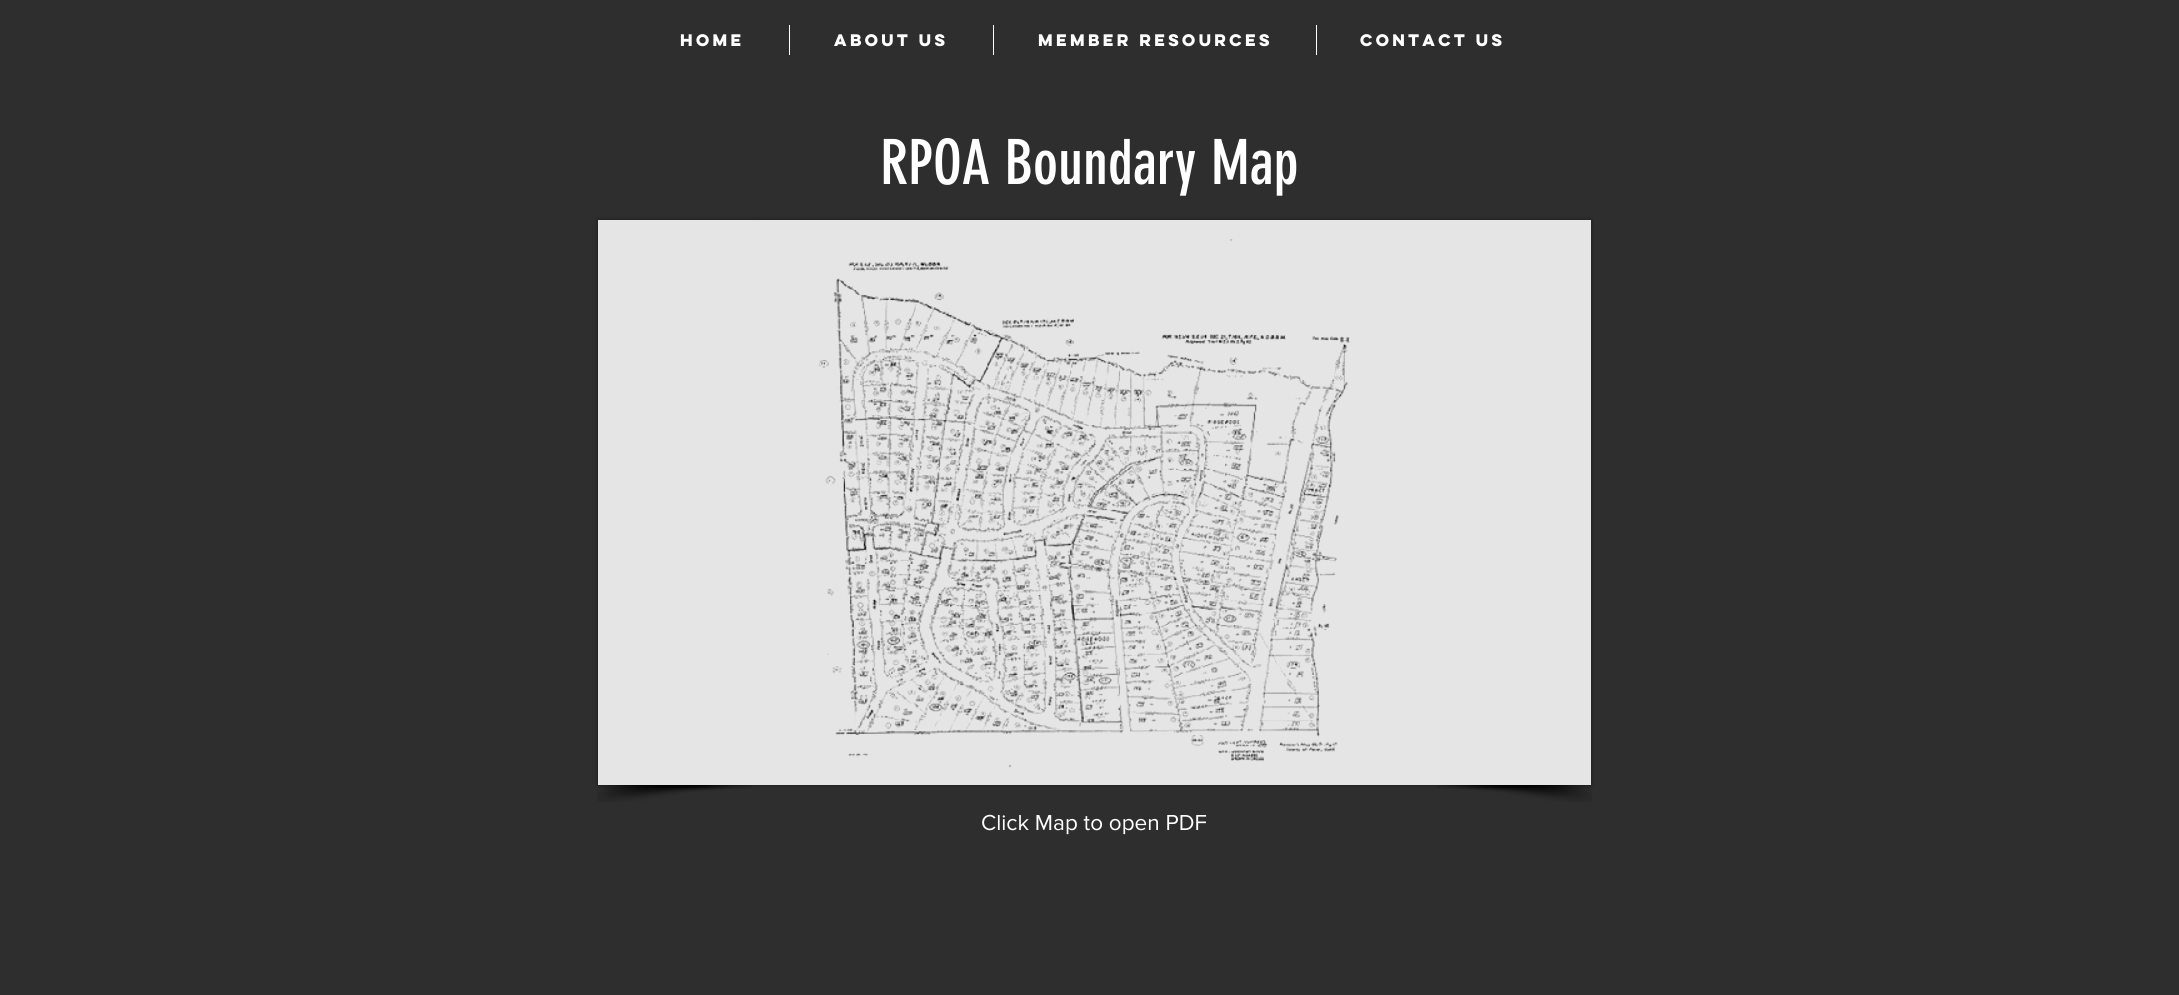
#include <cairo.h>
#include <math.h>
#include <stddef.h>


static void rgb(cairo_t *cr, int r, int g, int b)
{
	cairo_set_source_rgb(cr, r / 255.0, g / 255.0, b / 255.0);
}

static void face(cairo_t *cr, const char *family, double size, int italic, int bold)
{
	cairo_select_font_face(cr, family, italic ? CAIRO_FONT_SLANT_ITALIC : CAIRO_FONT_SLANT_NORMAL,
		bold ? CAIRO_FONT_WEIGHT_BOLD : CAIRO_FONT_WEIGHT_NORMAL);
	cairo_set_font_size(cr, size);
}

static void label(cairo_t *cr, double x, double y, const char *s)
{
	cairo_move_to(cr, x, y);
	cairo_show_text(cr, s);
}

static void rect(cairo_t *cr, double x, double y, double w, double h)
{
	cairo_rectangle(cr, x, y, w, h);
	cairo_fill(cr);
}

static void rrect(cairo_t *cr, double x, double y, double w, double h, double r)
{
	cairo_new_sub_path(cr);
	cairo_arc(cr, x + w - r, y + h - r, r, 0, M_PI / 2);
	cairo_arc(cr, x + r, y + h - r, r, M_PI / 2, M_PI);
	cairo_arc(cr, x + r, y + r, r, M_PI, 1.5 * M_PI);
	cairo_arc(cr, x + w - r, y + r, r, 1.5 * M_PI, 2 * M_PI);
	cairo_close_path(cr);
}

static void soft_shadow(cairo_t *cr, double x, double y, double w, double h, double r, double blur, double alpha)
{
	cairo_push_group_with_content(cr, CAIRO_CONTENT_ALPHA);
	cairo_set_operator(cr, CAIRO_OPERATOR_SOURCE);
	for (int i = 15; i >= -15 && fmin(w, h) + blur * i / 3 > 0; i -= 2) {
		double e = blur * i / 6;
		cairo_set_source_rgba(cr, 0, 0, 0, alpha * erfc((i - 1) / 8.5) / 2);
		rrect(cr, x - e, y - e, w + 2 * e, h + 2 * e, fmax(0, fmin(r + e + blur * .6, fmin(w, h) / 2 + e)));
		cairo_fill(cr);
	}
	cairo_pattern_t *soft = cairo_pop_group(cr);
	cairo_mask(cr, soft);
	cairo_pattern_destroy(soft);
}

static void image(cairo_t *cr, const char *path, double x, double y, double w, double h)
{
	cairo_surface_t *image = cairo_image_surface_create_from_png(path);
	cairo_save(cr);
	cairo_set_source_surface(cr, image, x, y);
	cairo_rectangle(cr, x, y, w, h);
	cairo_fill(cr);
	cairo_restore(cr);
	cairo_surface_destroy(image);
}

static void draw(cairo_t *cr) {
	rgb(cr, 47, 46, 46);
	cairo_paint(cr);
	face(cr, "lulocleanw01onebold", 15, 0, 1);
	rgb(cr, 255, 255, 255);
	label(cr, 680, 46, "HOME");
	rect(cr, 789, 25, 1, 30);
	label(cr, 834, 46, "ABOUT US");
	rect(cr, 993, 25, 1, 30);
	label(cr, 1038, 46, "MEMBER RESOURCES");
	rect(cr, 1316, 25, 1, 30);
	label(cr, 1360, 46, "CONTACT US");
	face(cr, "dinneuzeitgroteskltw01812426", 61.25, 0, 0);
	label(cr, 880, 184, "RPOA Boundary Map");
	rgb(cr, 0, 0, 0);
	soft_shadow(cr, 598, 220, 993, 565, 0, 2, 0.5);
	image(cr, "image0.png", 598, 220, 993, 565);
	image(cr, "image1.png", 597, 785, 155, 17);
	image(cr, "image2.png", 1437, 785, 155, 17);
	face(cr, "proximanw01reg", 22.5, 0, 0);
	rgb(cr, 255, 255, 255);
	label(cr, 981, 830, "Click Map to open PDF");
}

int main(void) {
	cairo_surface_t *surface = cairo_image_surface_create(CAIRO_FORMAT_RGB24, 2179, 995);
	cairo_t *cr = cairo_create(surface);
	cairo_font_options_t *options = cairo_font_options_create();
	cairo_font_options_set_hint_metrics(options, CAIRO_HINT_METRICS_OFF);
	cairo_font_options_set_hint_style(options, CAIRO_HINT_STYLE_NONE);
	cairo_set_font_options(cr, options);
	cairo_set_miter_limit(cr, 4);
	draw(cr);
	cairo_surface_write_to_png(surface, "render.png");
	cairo_font_options_destroy(options);
	cairo_destroy(cr);
	cairo_surface_destroy(surface);
	return 0;
}
